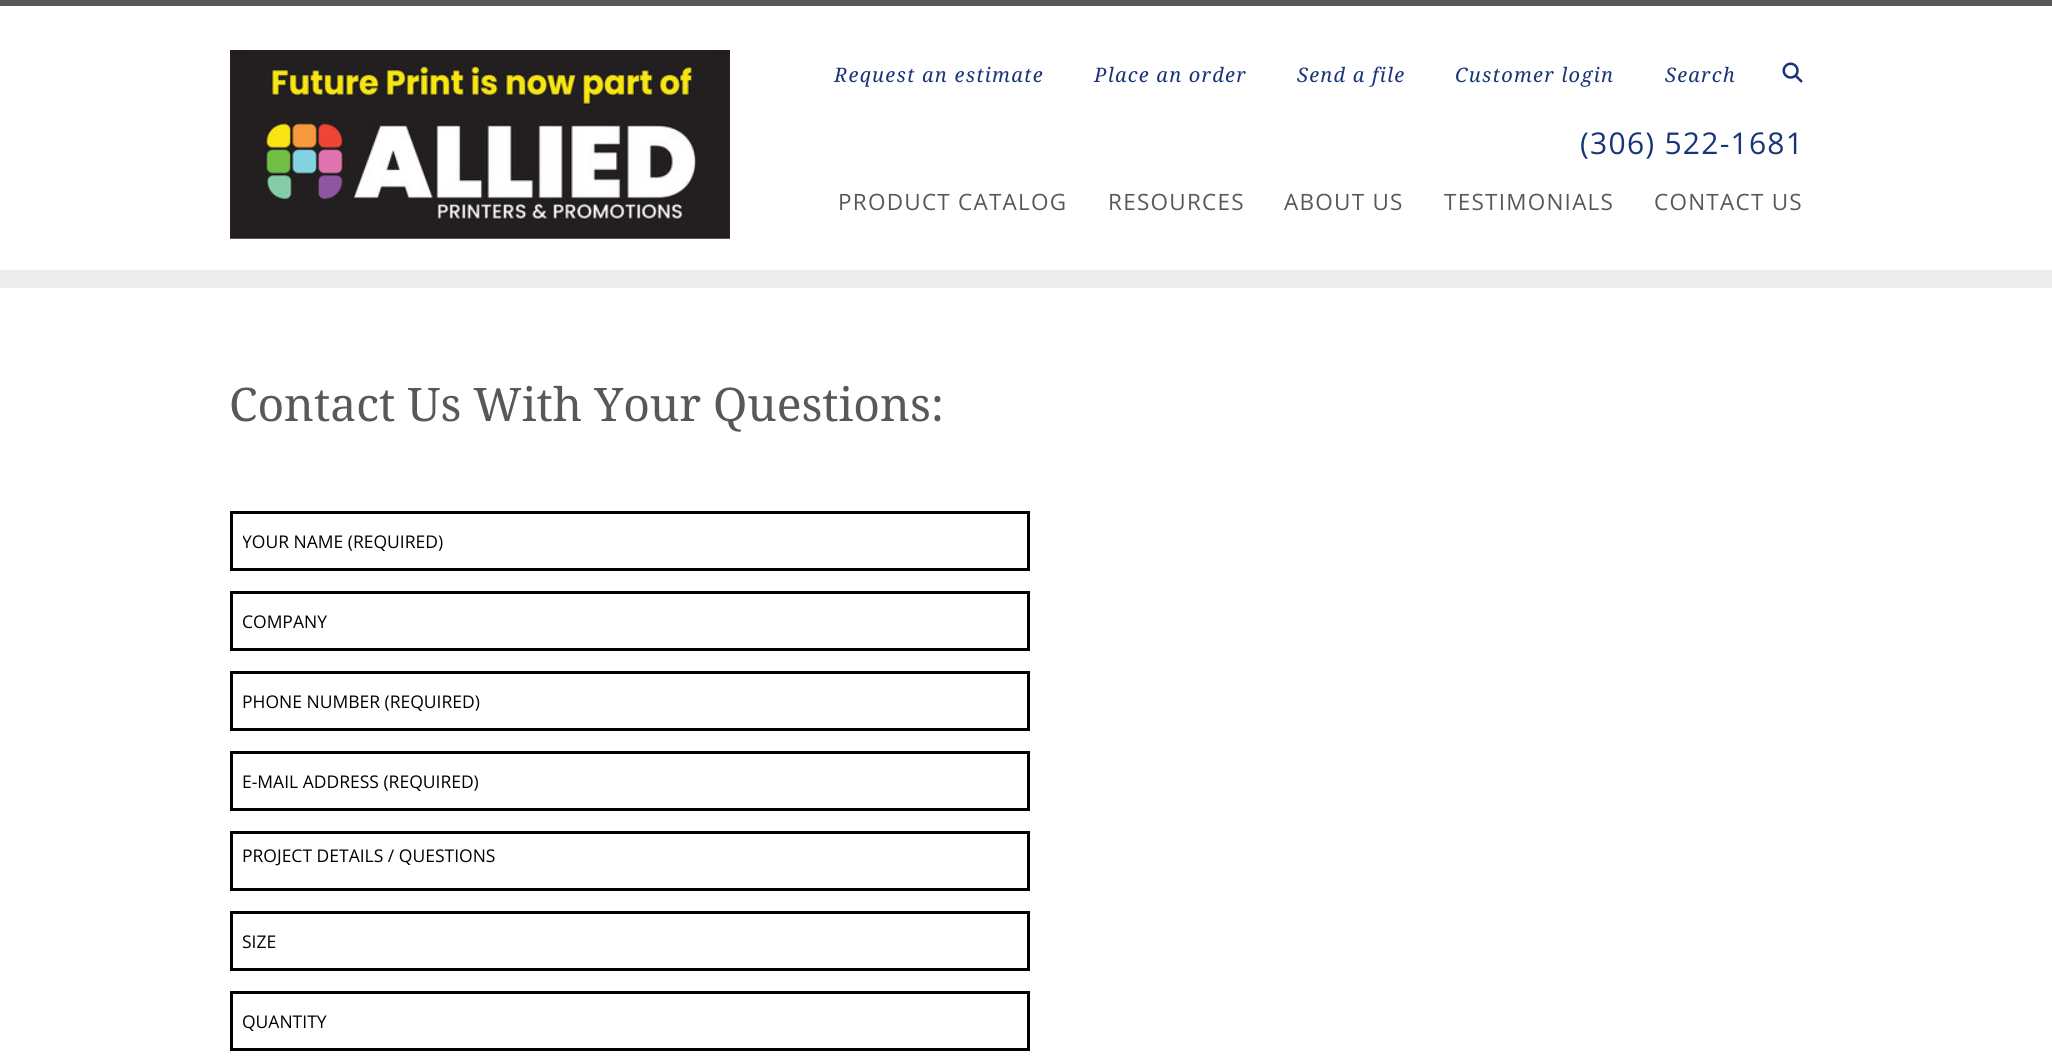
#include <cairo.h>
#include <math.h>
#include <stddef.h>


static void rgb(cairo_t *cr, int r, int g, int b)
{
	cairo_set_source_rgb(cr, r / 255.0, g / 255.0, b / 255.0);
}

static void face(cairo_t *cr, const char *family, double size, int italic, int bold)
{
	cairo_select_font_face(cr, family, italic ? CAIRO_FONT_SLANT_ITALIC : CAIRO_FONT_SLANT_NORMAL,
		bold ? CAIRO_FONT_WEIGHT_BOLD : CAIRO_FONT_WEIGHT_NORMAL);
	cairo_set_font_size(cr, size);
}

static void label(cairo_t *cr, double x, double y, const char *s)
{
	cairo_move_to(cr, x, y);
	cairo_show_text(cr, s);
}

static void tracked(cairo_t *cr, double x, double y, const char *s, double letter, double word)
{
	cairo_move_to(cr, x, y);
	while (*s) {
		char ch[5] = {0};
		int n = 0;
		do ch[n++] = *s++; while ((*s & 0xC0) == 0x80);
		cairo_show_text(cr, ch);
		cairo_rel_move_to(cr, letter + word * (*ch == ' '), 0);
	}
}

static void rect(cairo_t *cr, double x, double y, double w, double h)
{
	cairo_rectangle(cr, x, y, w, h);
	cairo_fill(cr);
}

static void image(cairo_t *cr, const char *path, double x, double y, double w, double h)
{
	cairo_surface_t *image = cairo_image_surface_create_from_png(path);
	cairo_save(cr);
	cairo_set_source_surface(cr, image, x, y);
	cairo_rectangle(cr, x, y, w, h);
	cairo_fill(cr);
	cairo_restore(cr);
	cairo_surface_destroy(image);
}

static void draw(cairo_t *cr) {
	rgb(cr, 88, 88, 88);
	cairo_paint(cr);
	rgb(cr, 255, 255, 255);
	rect(cr, 0, 6, 2052, 264);
	image(cr, "image0.png", 230, 50, 500, 189);
	face(cr, "Noto Serif", 20, 1, 0);
	rgb(cr, 24, 52, 120);
	tracked(cr, 834, 82, "Request an estimate", 1.25, 0);
	tracked(cr, 1094, 82, "Place an order", 1.25, 0);
	tracked(cr, 1297, 82, "Send a file", 1.25, 0);
	tracked(cr, 1455, 82, "Customer login", 1.25, 0);
	tracked(cr, 1665, 82, "Search", 1.25, 0);
	image(cr, "image1.png", 1782, 62, 21, 21);
	face(cr, "Open Sans", 30, 0, 0);
	tracked(cr, 1580, 154, "(306) 522-1681", 1.25, 0);
	face(cr, "Open Sans", 22.5, 0, 0);
	rgb(cr, 88, 88, 88);
	tracked(cr, 838, 210, "PRODUCT CATALOG", 1.25, 0);
	tracked(cr, 1108, 210, "RESOURCES", 1.25, 0);
	tracked(cr, 1284, 210, "ABOUT US", 1.25, 0);
	tracked(cr, 1444, 210, "TESTIMONIALS", 1.25, 0);
	tracked(cr, 1654, 210, "CONTACT US", 1.25, 0);
	rgb(cr, 237, 237, 237);
	rect(cr, 0, 270, 2052, 18);
	rgb(cr, 255, 255, 255);
	rect(cr, 0, 288, 2052, 772);
	face(cr, "Noto Serif", 46.25, 0, 0);
	rgb(cr, 88, 88, 88);
	label(cr, 229, 421, "Contact Us With Your Questions:");
	cairo_rectangle(cr, 231.5, 512.5, 797, 57);
	rgb(cr, 0, 0, 0);
	cairo_set_line_width(cr, 3);
	cairo_stroke(cr);
	cairo_save(cr);
	cairo_rectangle(cr, 243, 529, 775, 24);
	cairo_clip(cr);
	face(cr, "Open Sans", 17.5, 0, 0);
	label(cr, 242, 548, "YOUR NAME (REQUIRED)");
	cairo_restore(cr);
	cairo_rectangle(cr, 231.5, 592.5, 797, 57);
	cairo_stroke(cr);
	face(cr, "Open Sans", 17.5, 0, 0);
	label(cr, 242, 628, "COMPANY");
	cairo_rectangle(cr, 231.5, 672.5, 797, 57);
	cairo_stroke(cr);
	label(cr, 242, 708, "PHONE NUMBER (REQUIRED)");
	cairo_rectangle(cr, 231.5, 752.5, 797, 57);
	cairo_stroke(cr);
	label(cr, 242, 788, "E-MAIL ADDRESS (REQUIRED)");
	cairo_rectangle(cr, 231.5, 832.5, 797, 57);
	cairo_stroke(cr);
	label(cr, 242, 862, "PROJECT DETAILS / QUESTIONS");
	cairo_rectangle(cr, 231.5, 912.5, 797, 57);
	cairo_stroke(cr);
	label(cr, 242, 948, "SIZE");
	cairo_rectangle(cr, 231.5, 992.5, 797, 57);
	cairo_stroke(cr);
	label(cr, 242, 1028, "QUANTITY");
}

int main(void) {
	cairo_surface_t *surface = cairo_image_surface_create(CAIRO_FORMAT_RGB24, 2052, 1060);
	cairo_t *cr = cairo_create(surface);
	cairo_font_options_t *options = cairo_font_options_create();
	cairo_font_options_set_hint_metrics(options, CAIRO_HINT_METRICS_OFF);
	cairo_font_options_set_hint_style(options, CAIRO_HINT_STYLE_NONE);
	cairo_set_font_options(cr, options);
	cairo_set_miter_limit(cr, 4);
	draw(cr);
	cairo_surface_write_to_png(surface, "render.png");
	cairo_font_options_destroy(options);
	cairo_destroy(cr);
	cairo_surface_destroy(surface);
	return 0;
}
